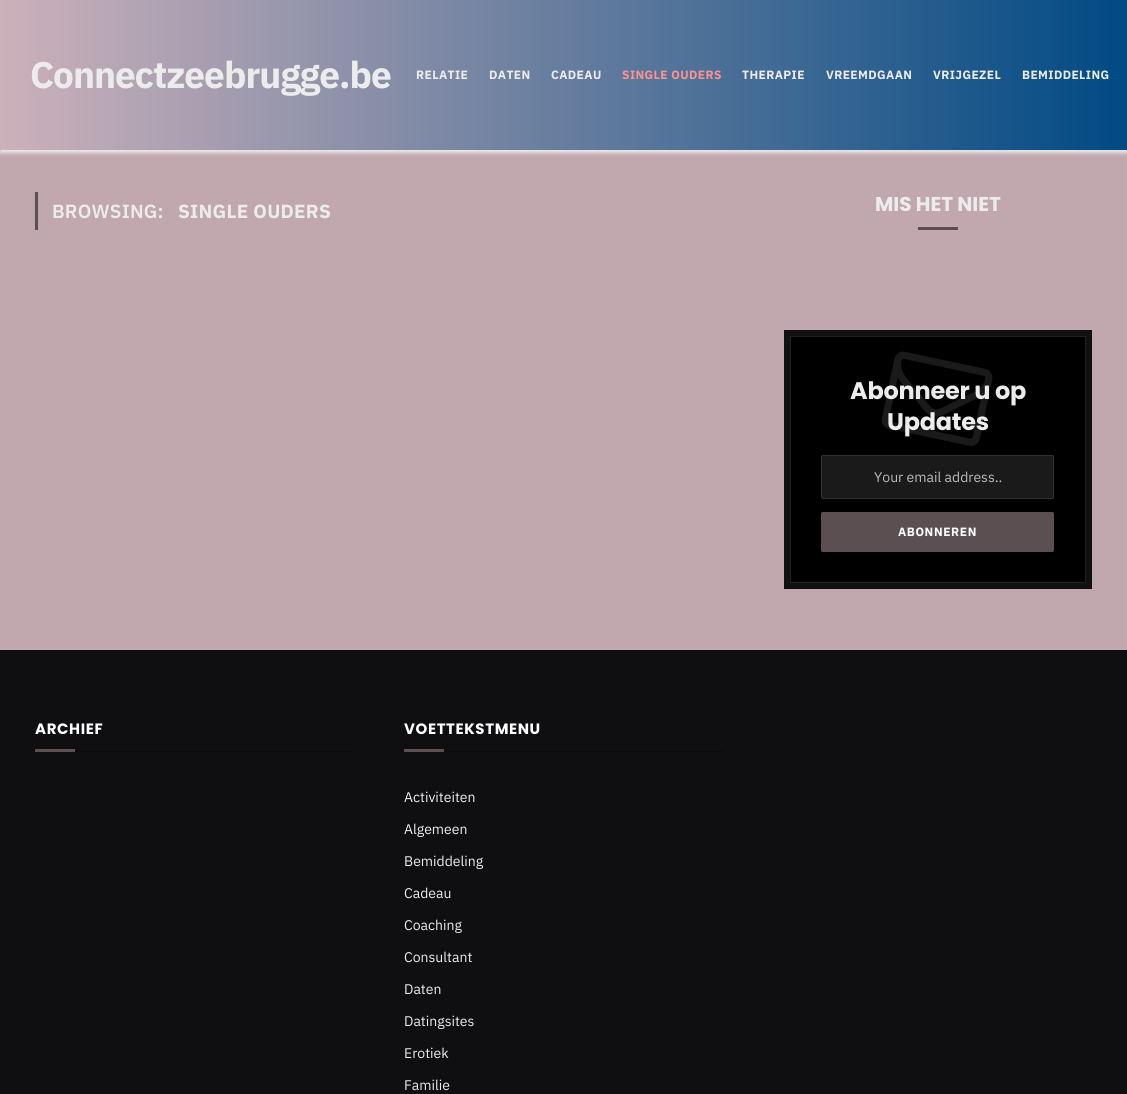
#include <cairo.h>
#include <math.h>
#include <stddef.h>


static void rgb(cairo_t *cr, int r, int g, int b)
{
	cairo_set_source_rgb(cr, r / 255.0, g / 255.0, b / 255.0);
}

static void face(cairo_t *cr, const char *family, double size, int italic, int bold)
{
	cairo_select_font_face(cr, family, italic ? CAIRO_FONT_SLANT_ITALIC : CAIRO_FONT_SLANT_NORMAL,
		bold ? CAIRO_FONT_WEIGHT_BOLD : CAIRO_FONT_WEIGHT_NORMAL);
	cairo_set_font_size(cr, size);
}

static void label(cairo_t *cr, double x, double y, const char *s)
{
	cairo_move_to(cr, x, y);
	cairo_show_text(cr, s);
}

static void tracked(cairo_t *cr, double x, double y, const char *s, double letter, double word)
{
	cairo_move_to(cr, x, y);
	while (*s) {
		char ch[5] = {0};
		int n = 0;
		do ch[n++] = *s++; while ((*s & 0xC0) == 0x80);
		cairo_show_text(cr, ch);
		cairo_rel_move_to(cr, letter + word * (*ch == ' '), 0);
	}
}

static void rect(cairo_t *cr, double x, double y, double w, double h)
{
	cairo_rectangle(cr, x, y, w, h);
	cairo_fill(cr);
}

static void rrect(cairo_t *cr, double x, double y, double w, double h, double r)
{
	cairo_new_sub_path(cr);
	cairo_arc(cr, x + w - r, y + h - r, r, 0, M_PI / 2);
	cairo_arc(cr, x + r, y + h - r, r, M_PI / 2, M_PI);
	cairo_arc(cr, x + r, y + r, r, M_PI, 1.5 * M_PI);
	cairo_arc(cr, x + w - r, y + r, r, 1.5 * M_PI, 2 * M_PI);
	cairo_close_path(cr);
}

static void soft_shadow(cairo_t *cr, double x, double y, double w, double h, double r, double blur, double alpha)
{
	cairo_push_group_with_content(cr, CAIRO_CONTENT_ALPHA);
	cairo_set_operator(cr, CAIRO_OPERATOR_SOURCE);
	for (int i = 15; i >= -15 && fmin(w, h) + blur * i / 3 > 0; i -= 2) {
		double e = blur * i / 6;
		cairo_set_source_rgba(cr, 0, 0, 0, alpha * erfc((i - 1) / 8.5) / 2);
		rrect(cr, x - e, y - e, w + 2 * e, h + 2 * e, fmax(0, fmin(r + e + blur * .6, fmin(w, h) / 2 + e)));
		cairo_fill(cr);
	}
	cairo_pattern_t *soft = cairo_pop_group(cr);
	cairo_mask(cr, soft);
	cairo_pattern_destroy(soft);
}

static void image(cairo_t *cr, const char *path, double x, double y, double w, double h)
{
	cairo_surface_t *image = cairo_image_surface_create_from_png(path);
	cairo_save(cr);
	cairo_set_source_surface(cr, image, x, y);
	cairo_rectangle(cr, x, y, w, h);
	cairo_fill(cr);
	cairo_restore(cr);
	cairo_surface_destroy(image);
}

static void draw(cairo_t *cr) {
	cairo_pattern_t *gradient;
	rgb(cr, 193, 168, 174);
	cairo_paint(cr);
	rgb(cr, 234, 234, 234);
	soft_shadow(cr, 0, 3, 1127, 150, 0, 2, 1);
	gradient = cairo_pattern_create_linear(0, 75, 1127, 75);
	cairo_pattern_add_color_stop_rgba(gradient, 0, 0.8, 0.694, 0.729, 1);
	cairo_pattern_add_color_stop_rgba(gradient, 1, 0.004, 0.29, 0.518, 1);
	cairo_set_source(cr, gradient);
	cairo_pattern_destroy(gradient);
	rect(cr, 0, 0, 1127, 150);
	face(cr, "IBM Plex Sans", 37, 0, 1);
	rgb(cr, 236, 236, 236);
	tracked(cr, 30, 88, "Connectzeebrugge.be", -1, 0);
	face(cr, "IBM Plex Sans", 12, 0, 1);
	tracked(cr, 416, 79, "RELATIE", 0.4, 0);
	tracked(cr, 489, 79, "DATEN", 0.4, 0);
	tracked(cr, 551, 79, "CADEAU", 0.4, 0);
	rgb(cr, 255, 145, 145);
	tracked(cr, 622, 79, "SINGLE OUDERS", 0.4, 0);
	rgb(cr, 236, 236, 236);
	tracked(cr, 742, 79, "THERAPIE", 0.4, 0);
	tracked(cr, 826, 79, "VREEMDGAAN", 0.4, 0);
	tracked(cr, 933, 79, "VRIJGEZEL", 0.4, 0);
	tracked(cr, 1022, 79, "BEMIDDELING", 0.4, 0);
	rgb(cr, 91, 79, 82);
	rect(cr, 35, 192, 3, 38);
	face(cr, "IBM Plex Sans SemiBold", 19, 0, 0);
	rgb(cr, 236, 236, 236);
	tracked(cr, 52, 218, "BROWSING:", 0.25, 0);
	face(cr, "IBM Plex Sans", 19, 0, 1);
	tracked(cr, 178, 218, "SINGLE OUDERS", 0.25, 0);
	face(cr, "Poppins", 20, 0, 1);
	label(cr, 875, 211, "MIS HET NIET");
	rgb(cr, 91, 79, 82);
	rect(cr, 918, 227, 40, 3);
	rgb(cr, 0, 0, 0);
	rect(cr, 791, 337, 294, 245);
	cairo_rectangle(cr, 787, 333, 302, 253);
	rgb(cr, 17, 17, 17);
	cairo_set_line_width(cr, 6);
	cairo_stroke(cr);
	cairo_rectangle(cr, 790.5, 336.5, 295, 246);
	rgb(cr, 33, 33, 33);
	cairo_set_line_width(cr, 1);
	cairo_stroke(cr);
	face(cr, "Poppins", 24, 0, 1);
	rgb(cr, 236, 236, 236);
	tracked(cr, 850, 399, "Abonneer u op", -0.25, 0);
	tracked(cr, 887, 430, "Updates", -0.25, 0);
	image(cr, "image0.png", 881, 351, 112, 95);
	rgb(cr, 26, 26, 26);
	rrect(cr, 821.5, 455.5, 232, 43, 1.5);
	cairo_fill_preserve(cr);
	rgb(cr, 51, 51, 51);
	cairo_stroke(cr);
	face(cr, "IBM Plex Sans", 14, 0, 0);
	rgb(cr, 187, 187, 187);
	label(cr, 874, 482, "Your email address..");
	rgb(cr, 91, 79, 82);
	rrect(cr, 821, 512, 233, 40, 2);
	cairo_fill(cr);
	face(cr, "IBM Plex Sans", 12, 0, 1);
	rgb(cr, 255, 255, 255);
	tracked(cr, 898, 536, "ABONNEREN", 0.6, 0);
	rgb(cr, 15, 15, 17);
	rect(cr, 0, 650, 1127, 444);
	rgb(cr, 10, 10, 10);
	rect(cr, 75, 751, 279, 1);
	face(cr, "Poppins", 15, 0, 1);
	rgb(cr, 255, 255, 255);
	tracked(cr, 35, 734, "ARCHIEF", 0.6, 0);
	rgb(cr, 91, 79, 82);
	rect(cr, 35, 749, 40, 3);
	rgb(cr, 10, 10, 10);
	rect(cr, 444, 751, 279, 1);
	rgb(cr, 255, 255, 255);
	tracked(cr, 404, 734, "VOETTEKSTMENU", 0.6, 0);
	rgb(cr, 91, 79, 82);
	rect(cr, 404, 749, 40, 3);
	face(cr, "IBM Plex Sans", 14, 0, 0);
	rgb(cr, 236, 236, 236);
	label(cr, 404, 802, "Activiteiten");
	label(cr, 404, 834, "Algemeen");
	label(cr, 404, 866, "Bemiddeling");
	label(cr, 404, 898, "Cadeau");
	label(cr, 404, 930, "Coaching");
	label(cr, 404, 962, "Consultant");
	label(cr, 404, 994, "Daten");
	label(cr, 404, 1026, "Datingsites");
	label(cr, 404, 1058, "Erotiek");
	label(cr, 404, 1090, "Familie");
}

int main(void) {
	cairo_surface_t *surface = cairo_image_surface_create(CAIRO_FORMAT_RGB24, 1127, 1094);
	cairo_t *cr = cairo_create(surface);
	cairo_font_options_t *options = cairo_font_options_create();
	cairo_font_options_set_hint_metrics(options, CAIRO_HINT_METRICS_OFF);
	cairo_font_options_set_hint_style(options, CAIRO_HINT_STYLE_NONE);
	cairo_set_font_options(cr, options);
	cairo_set_miter_limit(cr, 4);
	draw(cr);
	cairo_surface_write_to_png(surface, "render.png");
	cairo_font_options_destroy(options);
	cairo_destroy(cr);
	cairo_surface_destroy(surface);
	return 0;
}
